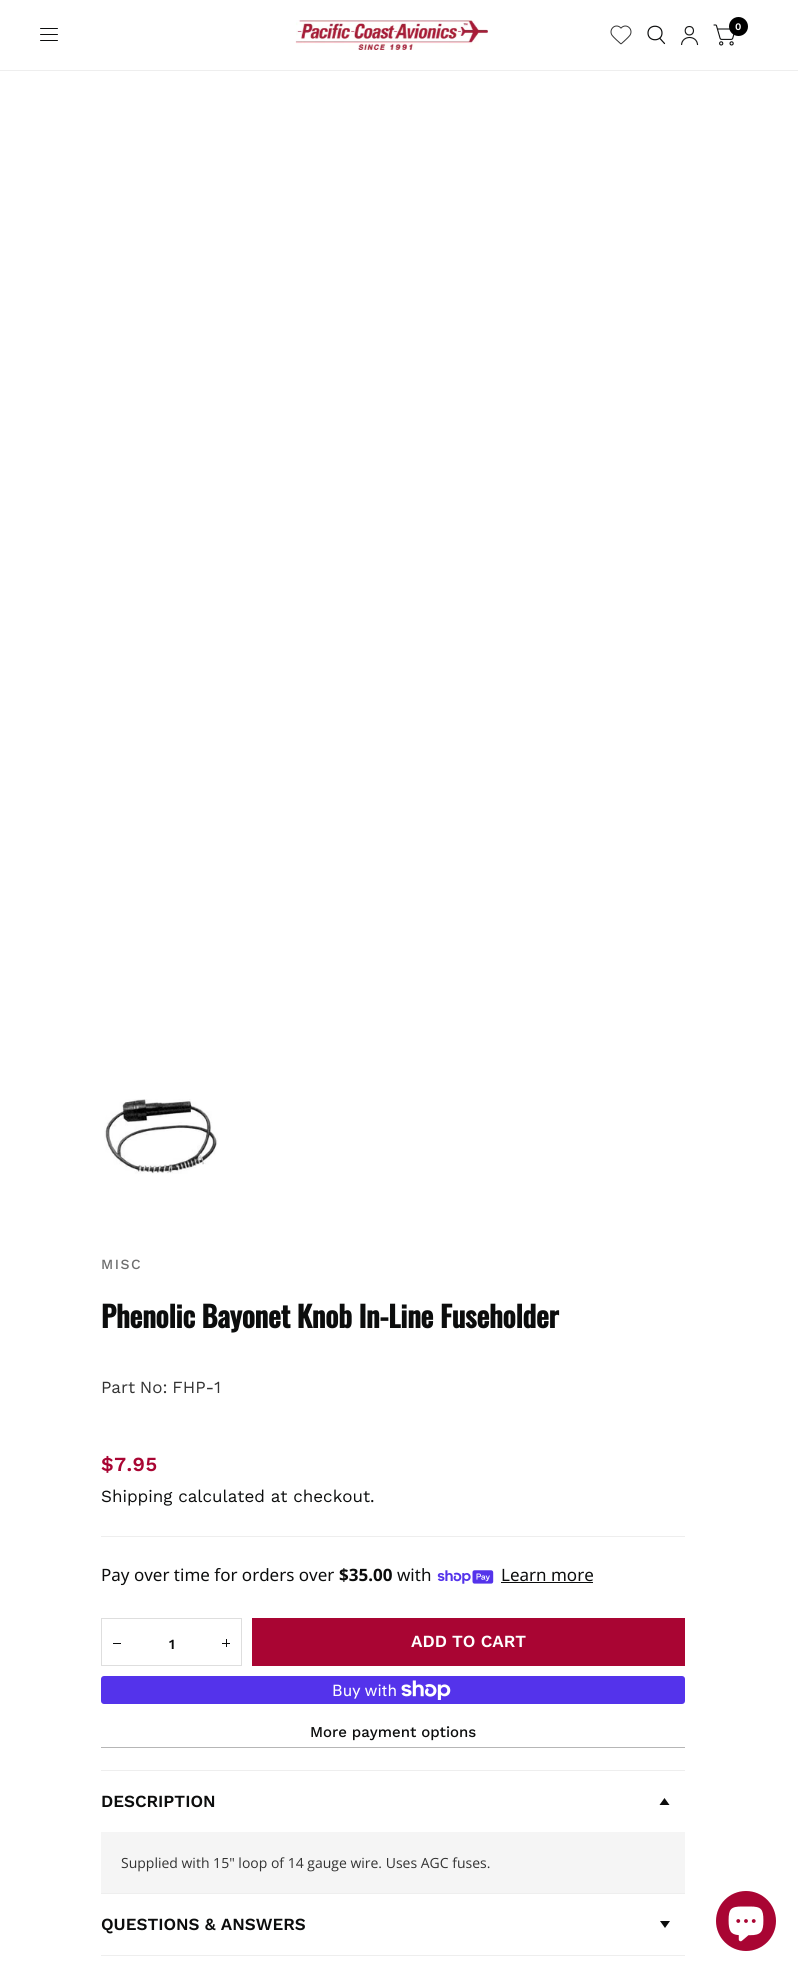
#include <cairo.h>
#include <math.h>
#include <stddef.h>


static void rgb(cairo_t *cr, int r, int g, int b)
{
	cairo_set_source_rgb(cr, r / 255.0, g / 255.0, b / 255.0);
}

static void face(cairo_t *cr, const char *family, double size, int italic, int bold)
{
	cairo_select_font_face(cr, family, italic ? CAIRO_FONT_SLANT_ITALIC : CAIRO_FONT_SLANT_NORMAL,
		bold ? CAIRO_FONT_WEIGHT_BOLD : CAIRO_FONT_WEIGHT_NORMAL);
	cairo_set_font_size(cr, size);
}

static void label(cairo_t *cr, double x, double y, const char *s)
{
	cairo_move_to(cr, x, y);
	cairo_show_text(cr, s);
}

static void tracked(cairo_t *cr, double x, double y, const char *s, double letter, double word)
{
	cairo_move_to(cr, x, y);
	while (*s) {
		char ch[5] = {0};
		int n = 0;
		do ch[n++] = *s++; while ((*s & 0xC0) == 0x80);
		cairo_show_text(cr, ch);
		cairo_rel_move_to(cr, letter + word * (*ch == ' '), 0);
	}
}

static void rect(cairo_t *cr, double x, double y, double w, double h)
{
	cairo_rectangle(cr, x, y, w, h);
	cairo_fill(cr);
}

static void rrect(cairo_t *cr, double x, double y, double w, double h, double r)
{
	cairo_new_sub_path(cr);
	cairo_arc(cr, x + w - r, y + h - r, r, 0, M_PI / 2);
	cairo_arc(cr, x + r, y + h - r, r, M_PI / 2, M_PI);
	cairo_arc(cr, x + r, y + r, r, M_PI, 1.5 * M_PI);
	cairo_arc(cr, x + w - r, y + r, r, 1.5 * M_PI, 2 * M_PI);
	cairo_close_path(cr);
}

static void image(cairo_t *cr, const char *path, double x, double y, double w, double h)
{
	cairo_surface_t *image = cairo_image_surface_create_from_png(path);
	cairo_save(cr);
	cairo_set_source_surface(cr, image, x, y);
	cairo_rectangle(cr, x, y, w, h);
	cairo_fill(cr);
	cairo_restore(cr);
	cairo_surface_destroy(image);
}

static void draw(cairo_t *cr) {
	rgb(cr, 255, 255, 255);
	cairo_paint(cr);
	rgb(cr, 238, 238, 238);
	rect(cr, 0, 70, 798, 1);
	image(cr, "image0.png", 295, 20, 193, 30);
	image(cr, "image1.png", 610, 25, 22, 20);
	cairo_new_path(cr);
	cairo_move_to(cr, 660, 38.5);
	cairo_line_to(cr, 664.5, 43.5);
	cairo_move_to(cr, 662, 33);
	cairo_curve_to(cr, 662, 42, 648, 42, 648, 33);
	cairo_curve_to(cr, 648, 24, 662, 24, 662, 33);
	cairo_close_path(cr);
	rgb(cr, 12, 13, 13);
	cairo_set_line_width(cr, 1.2);
	cairo_set_line_cap(cr, CAIRO_LINE_CAP_ROUND);
	cairo_set_line_join(cr, CAIRO_LINE_JOIN_ROUND);
	cairo_stroke(cr);
	image(cr, "image2.png", 681, 25, 18, 21);
	image(cr, "image3.png", 713, 24, 22, 22);
	rgb(cr, 0, 0, 0);
	cairo_arc(cr, 738.5, 26.5, 9.5, 0, 2 * M_PI);
	cairo_fill(cr);
	face(cr, "Work Sans SemiBold", 10, 0, 0);
	rgb(cr, 255, 255, 255);
	label(cr, 735, 30, "0");
	rgb(cr, 12, 13, 13);
	rrect(cr, 40, 28, 18, 1, 0.5);
	cairo_fill(cr);
	rrect(cr, 40, 34, 18, 1, 0.5);
	cairo_fill(cr);
	rrect(cr, 40, 40, 18, 1, 0.5);
	cairo_fill(cr);
	image(cr, "image4.png", 104, 1099, 114, 75);
	face(cr, "Work Sans Medium", 14, 0, 0);
	rgb(cr, 109, 110, 110);
	tracked(cr, 101, 1269, "MISC", 1.5, 0);
	rgb(cr, 238, 238, 238);
	rect(cr, 101, 1536, 584, 1);
	face(cr, "Oswald", 29, 0, 1);
	rgb(cr, 12, 13, 13);
	tracked(cr, 101, 1328, "Phenolic Bayonet Knob In-Line Fuseholder", -0.3, 0);
	face(cr, "Work Sans", 17, 0, 0);
	rgb(cr, 51, 51, 51);
	tracked(cr, 101, 1393, "Part No: FHP-1", 0, -1);
	face(cr, "Work Sans SemiBold", 20, 0, 0);
	rgb(cr, 169, 5, 51);
	tracked(cr, 101, 1471, "$7.95", 0.5, 0);
	face(cr, "Work Sans", 17, 0, 0);
	rgb(cr, 12, 13, 13);
	label(cr, 101, 1502, "Shipping calculated at checkout.");
	face(cr, "Noto Sans", 17, 0, 0);
	label(cr, 101, 1581, "Pay over time for orders over");
	face(cr, "Noto Sans", 17, 0, 1);
	label(cr, 339, 1581, "$35.00");
	face(cr, "Noto Sans", 17, 0, 0);
	label(cr, 397, 1581, "with");
	image(cr, "image5.png", 437, 1570, 57, 14);
	label(cr, 501, 1581, "Learn more");
	rect(cr, 501, 1582, 92, 1);
	cairo_rectangle(cr, 101.5, 1618.5, 140, 47);
	rgb(cr, 222, 222, 222);
	cairo_set_line_width(cr, 1);
	cairo_set_line_cap(cr, CAIRO_LINE_CAP_BUTT);
	cairo_set_line_join(cr, CAIRO_LINE_JOIN_MITER);
	cairo_stroke(cr);
	rgb(cr, 12, 13, 13);
	rect(cr, 113, 1643, 8, 1);
	face(cr, "Work Sans SemiBold", 14, 0, 0);
	label(cr, 169, 1649, "1");
	rect(cr, 226, 1639, 1, 8);
	rect(cr, 222, 1643, 8, 1);
	rgb(cr, 169, 5, 51);
	rect(cr, 252, 1618, 433, 48);
	face(cr, "Work Sans SemiBold", 17, 0, 0);
	rgb(cr, 255, 255, 255);
	label(cr, 411, 1647, "ADD TO CART");
	rgb(cr, 84, 51, 235);
	rrect(cr, 101, 1676, 584, 28, 3);
	cairo_fill(cr);
	face(cr, "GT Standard", 16, 0, 0);
	rgb(cr, 255, 255, 255);
	label(cr, 332, 1696, "Buy with");
	image(cr, "image6.png", 401, 1680, 50, 20);
	face(cr, "Work Sans Medium", 15, 0, 0);
	rgb(cr, 12, 13, 13);
	label(cr, 310, 1737, "More payment options");
	rgb(cr, 182, 182, 182);
	rect(cr, 101, 1747, 584, 1);
	rgb(cr, 238, 238, 238);
	rect(cr, 101, 1770, 584, 1);
	rect(cr, 101, 1893, 584, 1);
	face(cr, "Work Sans SemiBold", 17, 0, 0);
	rgb(cr, 12, 13, 13);
	label(cr, 101, 1807, "DESCRIPTION");
	cairo_new_path(cr);
	cairo_move_to(cr, 659.5, 1805);
	cairo_line_to(cr, 669.5, 1805);
	cairo_line_to(cr, 664.5, 1798);
	cairo_close_path(cr);
	cairo_fill(cr);
	rgb(cr, 245, 245, 245);
	rect(cr, 101, 1832, 584, 61);
	face(cr, "Open Sans", 14, 0, 0);
	rgb(cr, 51, 51, 51);
	label(cr, 121, 1868, "Supplied with 15\" loop of 14 gauge wire. Uses AGC fuses.");
	rgb(cr, 238, 238, 238);
	rect(cr, 101, 1955, 584, 1);
	face(cr, "Work Sans SemiBold", 17, 0, 0);
	rgb(cr, 12, 13, 13);
	label(cr, 101, 1930, "QUESTIONS & ANSWERS");
	cairo_new_path(cr);
	cairo_move_to(cr, 660, 1921);
	cairo_line_to(cr, 670, 1921);
	cairo_line_to(cr, 665, 1928);
	cairo_close_path(cr);
	cairo_fill(cr);
	rgb(cr, 169, 5, 51);
	cairo_arc(cr, 746, 1921, 30, 0, 2 * M_PI);
	cairo_fill(cr);
	image(cr, "image7.png", 728, 1906, 36, 36);
}

int main(void) {
	cairo_surface_t *surface = cairo_image_surface_create(CAIRO_FORMAT_RGB24, 798, 1972);
	cairo_t *cr = cairo_create(surface);
	cairo_font_options_t *options = cairo_font_options_create();
	cairo_font_options_set_hint_metrics(options, CAIRO_HINT_METRICS_OFF);
	cairo_font_options_set_hint_style(options, CAIRO_HINT_STYLE_NONE);
	cairo_set_font_options(cr, options);
	cairo_set_miter_limit(cr, 4);
	draw(cr);
	cairo_surface_write_to_png(surface, "render.png");
	cairo_font_options_destroy(options);
	cairo_destroy(cr);
	cairo_surface_destroy(surface);
	return 0;
}
